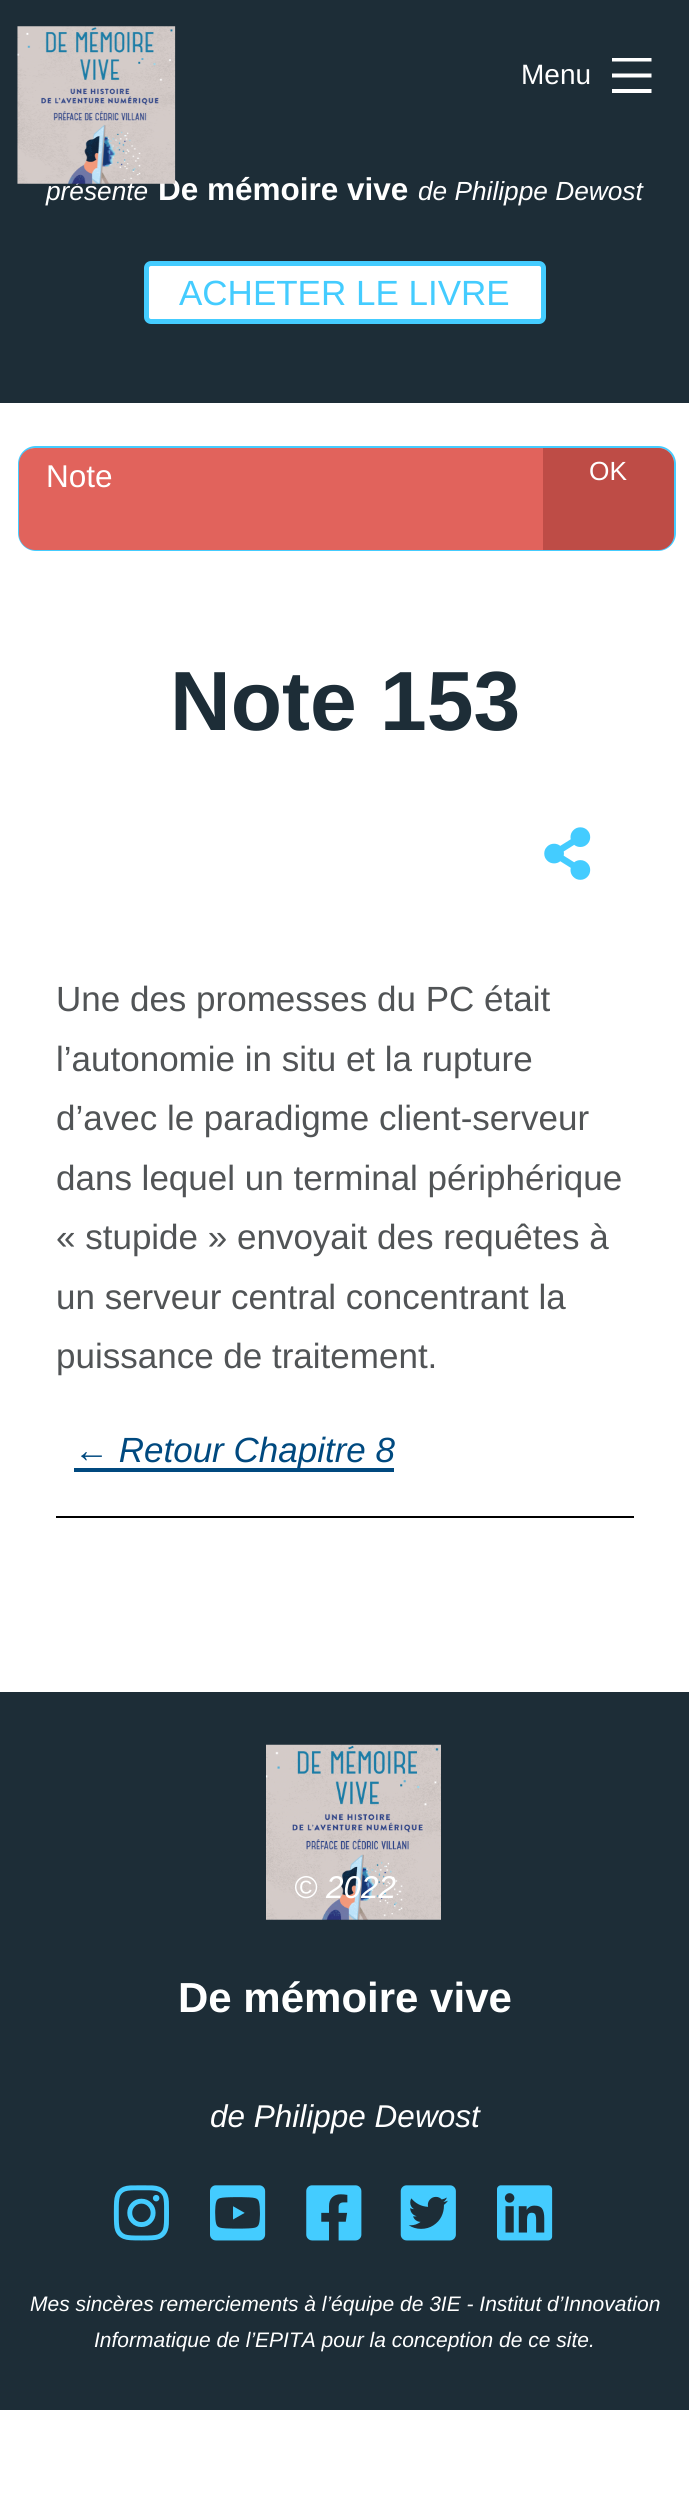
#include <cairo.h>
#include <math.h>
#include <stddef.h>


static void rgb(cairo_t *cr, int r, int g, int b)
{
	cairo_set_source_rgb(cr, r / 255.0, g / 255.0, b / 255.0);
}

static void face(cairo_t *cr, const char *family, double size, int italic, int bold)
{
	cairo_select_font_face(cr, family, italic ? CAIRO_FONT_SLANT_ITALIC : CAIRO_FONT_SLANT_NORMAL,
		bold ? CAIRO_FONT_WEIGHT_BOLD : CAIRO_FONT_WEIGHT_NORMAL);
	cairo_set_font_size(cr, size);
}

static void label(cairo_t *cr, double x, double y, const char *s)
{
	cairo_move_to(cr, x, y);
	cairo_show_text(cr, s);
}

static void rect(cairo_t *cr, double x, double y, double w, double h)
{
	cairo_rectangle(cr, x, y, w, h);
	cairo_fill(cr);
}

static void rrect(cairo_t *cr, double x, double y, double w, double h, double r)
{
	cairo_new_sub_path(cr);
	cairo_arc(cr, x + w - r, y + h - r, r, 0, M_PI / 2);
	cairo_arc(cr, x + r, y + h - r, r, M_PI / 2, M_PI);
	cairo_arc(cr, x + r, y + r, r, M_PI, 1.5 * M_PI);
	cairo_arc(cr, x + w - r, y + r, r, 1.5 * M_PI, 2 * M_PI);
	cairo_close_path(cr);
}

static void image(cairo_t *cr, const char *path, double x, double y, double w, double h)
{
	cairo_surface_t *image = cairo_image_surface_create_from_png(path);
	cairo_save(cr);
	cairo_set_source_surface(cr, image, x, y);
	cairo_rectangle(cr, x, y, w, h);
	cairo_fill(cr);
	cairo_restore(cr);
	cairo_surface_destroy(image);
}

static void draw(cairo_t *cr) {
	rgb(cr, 255, 255, 255);
	cairo_paint(cr);
	rgb(cr, 29, 45, 55);
	rect(cr, 0, 0, 689, 403);
	face(cr, "Liberation Sans", 26.25, 1, 0);
	rgb(cr, 255, 255, 255);
	label(cr, 46, 200, "présente");
	face(cr, "Liberation Sans", 31.5, 0, 1);
	label(cr, 158, 200, "De mémoire vive");
	image(cr, "image0.png", 17, 26, 159, 158);
	face(cr, "Liberation Sans", 28, 0, 0);
	label(cr, 521, 84, "Menu");
	cairo_set_fill_rule(cr, CAIRO_FILL_RULE_EVEN_ODD);
	cairo_new_path(cr);
	cairo_move_to(cr, 612, 58);
	cairo_line_to(cr, 651.5, 58);
	cairo_line_to(cr, 651.5, 61.5);
	cairo_line_to(cr, 612, 61.5);
	cairo_close_path(cr);
	cairo_move_to(cr, 612, 73.5);
	cairo_line_to(cr, 651.5, 73.5);
	cairo_line_to(cr, 651.5, 77.5);
	cairo_line_to(cr, 612, 77.5);
	cairo_close_path(cr);
	cairo_move_to(cr, 651.5, 89);
	cairo_line_to(cr, 612, 89);
	cairo_line_to(cr, 612, 93);
	cairo_line_to(cr, 651.5, 93);
	cairo_close_path(cr);
	cairo_fill(cr);
	face(cr, "Liberation Sans", 26.25, 1, 0);
	label(cr, 418, 200, "de Philippe Dewost");
	rrect(cr, 146.5, 263.5, 397, 58, 4.5);
	cairo_fill_preserve(cr);
	rgb(cr, 68, 204, 255);
	cairo_set_line_width(cr, 5);
	cairo_stroke(cr);
	face(cr, "Liberation Sans", 35, 0, 0);
	label(cr, 179, 305, "ACHETER LE LIVRE");
	rrect(cr, 19, 447, 656, 103, 17);
	cairo_set_line_width(cr, 2);
	cairo_stroke(cr);
	rgb(cr, 225, 99, 92);
	rrect(cr, 19, 448, 655, 102, 16);
	cairo_fill(cr);
	face(cr, "Liberation Sans", 31.5, 0, 0);
	rgb(cr, 255, 255, 255);
	label(cr, 46, 487, "Note");
	rgb(cr, 190, 76, 70);
	cairo_new_path(cr);
	cairo_move_to(cr, 543, 448);
	cairo_line_to(cr, 658, 448);
	cairo_curve_to(cr, 667, 448, 674, 455, 674, 464);
	cairo_line_to(cr, 674, 534);
	cairo_curve_to(cr, 674, 543, 667, 550, 658, 550);
	cairo_line_to(cr, 543, 550);
	cairo_close_path(cr);
	cairo_fill(cr);
	face(cr, "Liberation Sans", 26.25, 0, 0);
	rgb(cr, 255, 255, 255);
	label(cr, 589, 480, "OK");
	face(cr, "Liberation Sans", 84, 0, 1);
	rgb(cr, 29, 45, 55);
	label(cr, 170, 730, "Note 153");
	image(cr, "image1.png", 544, 827, 47, 53);
	face(cr, "Liberation Sans", 35, 0, 0);
	rgb(cr, 81, 84, 86);
	label(cr, 56, 1011, "Une des promesses du PC était");
	label(cr, 56, 1071, "l’autonomie in situ et la rupture");
	label(cr, 56, 1130, "d’avec le paradigme client-serveur");
	label(cr, 56, 1190, "dans lequel un terminal périphérique");
	label(cr, 56, 1249, "« stupide » envoyait des requêtes à");
	label(cr, 56, 1309, "un serveur central concentrant la");
	label(cr, 56, 1368, "puissance de traitement.");
	rgb(cr, 0, 73, 127);
	rect(cr, 74, 1468, 320, 4);
	face(cr, "Liberation Sans", 35, 1, 0);
	label(cr, 74, 1462, "← Retour Chapitre 8");
	rgb(cr, 0, 0, 0);
	rect(cr, 56, 1516, 578, 2);
	rgb(cr, 29, 45, 55);
	rect(cr, 0, 1692, 689, 718);
	image(cr, "image2.png", 266, 1744, 175, 176);
	face(cr, "Liberation Sans", 31.5, 1, 0);
	rgb(cr, 255, 255, 255);
	label(cr, 294, 1898, "© 2022");
	face(cr, "Liberation Sans", 42, 0, 1);
	label(cr, 178, 2012, "De mémoire vive");
	face(cr, "Liberation Sans", 31.5, 1, 0);
	label(cr, 210, 2127, "de Philippe Dewost");
	image(cr, "image3.png", 113, 2185, 56, 56);
	image(cr, "image4.png", 210, 2185, 56, 56);
	image(cr, "image5.png", 306, 2185, 56, 56);
	image(cr, "image6.png", 400, 2185, 56, 56);
	image(cr, "image7.png", 497, 2185, 56, 56);
	face(cr, "Liberation Sans", 21, 1, 0);
	label(cr, 30, 2311, "Mes sincères remerciements à l’équipe de 3IE - Institut d’Innovation");
	label(cr, 94, 2347, "Informatique de l’EPITA pour la conception de ce site.");
}

int main(void) {
	cairo_surface_t *surface = cairo_image_surface_create(CAIRO_FORMAT_RGB24, 689, 2517);
	cairo_t *cr = cairo_create(surface);
	cairo_font_options_t *options = cairo_font_options_create();
	cairo_font_options_set_hint_metrics(options, CAIRO_HINT_METRICS_OFF);
	cairo_font_options_set_hint_style(options, CAIRO_HINT_STYLE_NONE);
	cairo_set_font_options(cr, options);
	cairo_set_miter_limit(cr, 4);
	draw(cr);
	cairo_surface_write_to_png(surface, "render.png");
	cairo_font_options_destroy(options);
	cairo_destroy(cr);
	cairo_surface_destroy(surface);
	return 0;
}
